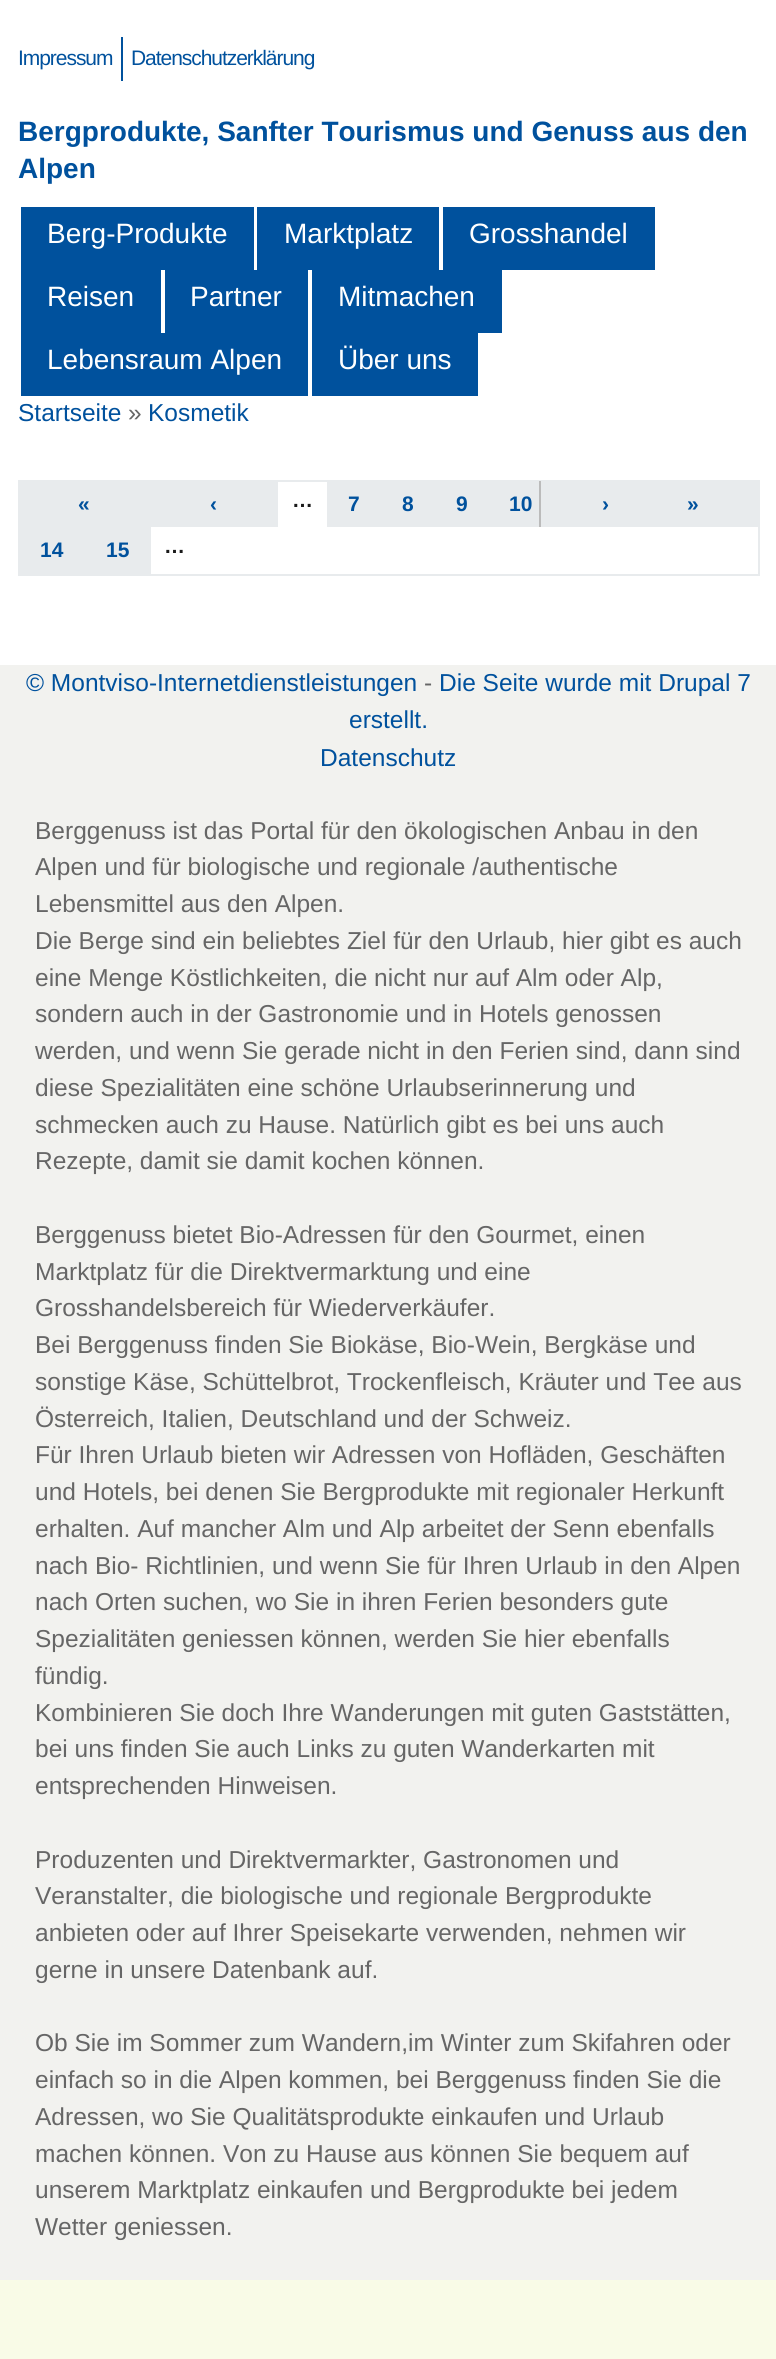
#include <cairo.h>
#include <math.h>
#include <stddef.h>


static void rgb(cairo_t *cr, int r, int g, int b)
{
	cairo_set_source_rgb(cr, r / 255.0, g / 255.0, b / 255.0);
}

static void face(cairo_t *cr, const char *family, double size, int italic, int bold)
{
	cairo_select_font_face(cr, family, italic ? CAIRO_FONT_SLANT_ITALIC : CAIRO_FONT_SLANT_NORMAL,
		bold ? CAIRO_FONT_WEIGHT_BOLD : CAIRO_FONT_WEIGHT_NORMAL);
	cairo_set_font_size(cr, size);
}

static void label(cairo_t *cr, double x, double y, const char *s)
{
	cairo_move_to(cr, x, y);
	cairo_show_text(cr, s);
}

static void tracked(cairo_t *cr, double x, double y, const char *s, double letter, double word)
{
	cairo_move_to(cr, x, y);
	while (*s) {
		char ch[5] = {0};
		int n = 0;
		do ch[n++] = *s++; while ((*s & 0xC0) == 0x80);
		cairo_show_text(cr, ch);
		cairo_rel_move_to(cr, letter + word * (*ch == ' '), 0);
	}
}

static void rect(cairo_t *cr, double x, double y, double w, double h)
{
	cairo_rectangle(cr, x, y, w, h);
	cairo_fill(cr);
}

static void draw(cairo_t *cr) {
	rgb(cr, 249, 251, 231);
	cairo_paint(cr);
	rgb(cr, 255, 255, 255);
	rect(cr, 0, 0, 776, 665);
	rgb(cr, 0, 81, 157);
	rect(cr, 121, 37, 2, 44);
	face(cr, "Liberation Sans", 21, 0, 0);
	tracked(cr, 18, 65, "Impressum", -1.05, 0);
	tracked(cr, 131, 65, "Datenschutzerklärung", -1.05, 0);
	face(cr, "Liberation Sans", 28, 0, 1);
	label(cr, 18, 141, "Bergprodukte, Sanfter Tourismus und Genuss aus den");
	label(cr, 18, 178, "Alpen");
	rect(cr, 21, 207, 233, 63);
	face(cr, "Liberation Sans", 28, 0, 0);
	rgb(cr, 255, 255, 255);
	label(cr, 47, 243, "Berg-Produkte");
	rgb(cr, 0, 81, 157);
	rect(cr, 257, 207, 182, 63);
	rgb(cr, 255, 255, 255);
	label(cr, 284, 243, "Marktplatz");
	rgb(cr, 0, 81, 157);
	rect(cr, 443, 207, 212, 63);
	rgb(cr, 255, 255, 255);
	label(cr, 469, 243, "Grosshandel");
	rgb(cr, 0, 81, 157);
	rect(cr, 21, 270, 140, 63);
	rgb(cr, 255, 255, 255);
	label(cr, 47, 306, "Reisen");
	rgb(cr, 0, 81, 157);
	rect(cr, 165, 270, 143, 63);
	rgb(cr, 255, 255, 255);
	label(cr, 190, 306, "Partner");
	rgb(cr, 0, 81, 157);
	rect(cr, 312, 270, 190, 63);
	rgb(cr, 255, 255, 255);
	label(cr, 338, 306, "Mitmachen");
	rgb(cr, 0, 81, 157);
	rect(cr, 21, 333, 287, 63);
	rgb(cr, 255, 255, 255);
	label(cr, 47, 369, "Lebensraum Alpen");
	rgb(cr, 0, 81, 157);
	rect(cr, 312, 333, 166, 63);
	rgb(cr, 255, 255, 255);
	label(cr, 338, 369, "Über uns");
	face(cr, "Liberation Sans", 24.5, 0, 0);
	rgb(cr, 0, 81, 157);
	label(cr, 18, 421, "Startseite");
	rgb(cr, 102, 102, 102);
	label(cr, 128, 421, "»");
	rgb(cr, 0, 81, 157);
	label(cr, 148, 421, "Kosmetik");
	cairo_rectangle(cr, 19, 481, 740, 94);
	rgb(cr, 232, 235, 237);
	cairo_stroke(cr);
	rect(cr, 20, 482, 258, 45);
	face(cr, "Liberation Sans", 21, 0, 1);
	rgb(cr, 0, 81, 157);
	label(cr, 78, 511, "«");
	label(cr, 210, 511, "‹");
	rgb(cr, 26, 26, 26);
	label(cr, 292, 507, "…");
	rgb(cr, 232, 235, 237);
	rect(cr, 327, 482, 212, 45);
	rgb(cr, 0, 81, 157);
	label(cr, 348, 511, "7");
	label(cr, 402, 511, "8");
	label(cr, 456, 511, "9");
	label(cr, 509, 511, "10");
	rgb(cr, 187, 187, 187);
	rect(cr, 539, 481, 2, 46);
	rgb(cr, 232, 235, 237);
	rect(cr, 541, 482, 217, 45);
	rgb(cr, 0, 81, 157);
	label(cr, 602, 511, "›");
	label(cr, 687, 511, "»");
	rgb(cr, 232, 235, 237);
	rect(cr, 20, 527, 131, 47);
	rgb(cr, 0, 81, 157);
	label(cr, 40, 557, "14");
	label(cr, 106, 557, "15");
	rgb(cr, 26, 26, 26);
	label(cr, 164, 553, "…");
	rgb(cr, 242, 242, 239);
	rect(cr, 0, 665, 776, 1615);
	face(cr, "Liberation Sans", 24.5, 0, 0);
	rgb(cr, 0, 81, 157);
	label(cr, 26, 691, "© Montviso-Internetdienstleistungen");
	rgb(cr, 102, 102, 102);
	label(cr, 424, 691, "-");
	rgb(cr, 0, 81, 157);
	label(cr, 439, 691, "Die Seite wurde mit Drupal 7");
	label(cr, 349, 728, "erstellt.");
	label(cr, 320, 766, "Datenschutz");
	rgb(cr, 102, 102, 102);
	label(cr, 35, 839, "Berggenuss ist das Portal für den ökologischen Anbau in den");
	label(cr, 35, 875, "Alpen und für biologische und regionale /authentische");
	label(cr, 35, 912, "Lebensmittel aus den Alpen.");
	label(cr, 35, 949, "Die Berge sind ein beliebtes Ziel für den Urlaub, hier gibt es auch");
	label(cr, 35, 986, "eine Menge Köstlichkeiten, die nicht nur auf Alm oder Alp,");
	label(cr, 35, 1022, "sondern auch in der Gastronomie und in Hotels genossen");
	label(cr, 35, 1059, "werden, und wenn Sie gerade nicht in den Ferien sind, dann sind");
	label(cr, 35, 1096, "diese Spezialitäten eine schöne Urlaubserinnerung und");
	label(cr, 35, 1133, "schmecken auch zu Hause. Natürlich gibt es bei uns auch");
	label(cr, 35, 1169, "Rezepte, damit sie damit kochen können.");
	label(cr, 35, 1243, "Berggenuss bietet Bio-Adressen für den Gourmet, einen");
	label(cr, 35, 1280, "Marktplatz für die Direktvermarktung und eine");
	label(cr, 35, 1316, "Grosshandelsbereich für Wiederverkäufer.");
	label(cr, 35, 1353, "Bei Berggenuss finden Sie Biokäse, Bio-Wein, Bergkäse und");
	label(cr, 35, 1390, "sonstige Käse, Schüttelbrot, Trockenfleisch, Kräuter und Tee aus");
	label(cr, 35, 1427, "Österreich, Italien, Deutschland und der Schweiz.");
	label(cr, 35, 1463, "Für Ihren Urlaub bieten wir Adressen von Hofläden, Geschäften");
	label(cr, 35, 1500, "und Hotels, bei denen Sie Bergprodukte mit regionaler Herkunft");
	label(cr, 35, 1537, "erhalten. Auf mancher Alm und Alp arbeitet der Senn ebenfalls");
	label(cr, 35, 1574, "nach Bio- Richtlinien, und wenn Sie für Ihren Urlaub in den Alpen");
	label(cr, 35, 1610, "nach Orten suchen, wo Sie in ihren Ferien besonders gute");
	label(cr, 35, 1647, "Spezialitäten geniessen können, werden Sie hier ebenfalls");
	label(cr, 35, 1684, "fündig.");
	label(cr, 35, 1721, "Kombinieren Sie doch Ihre Wanderungen mit guten Gaststätten,");
	label(cr, 35, 1757, "bei uns finden Sie auch Links zu guten Wanderkarten mit");
	label(cr, 35, 1794, "entsprechenden Hinweisen.");
	label(cr, 35, 1868, "Produzenten und Direktvermarkter, Gastronomen und");
	label(cr, 35, 1904, "Veranstalter, die biologische und regionale Bergprodukte");
	label(cr, 35, 1941, "anbieten oder auf Ihrer Speisekarte verwenden, nehmen wir");
	label(cr, 35, 1978, "gerne in unsere Datenbank auf.");
	label(cr, 35, 2051, "Ob Sie im Sommer zum Wandern,im Winter zum Skifahren oder");
	label(cr, 35, 2088, "einfach so in die Alpen kommen, bei Berggenuss finden Sie die");
	label(cr, 35, 2125, "Adressen, wo Sie Qualitätsprodukte einkaufen und Urlaub");
	label(cr, 35, 2162, "machen können. Von zu Hause aus können Sie bequem auf");
	label(cr, 35, 2198, "unserem Marktplatz einkaufen und Bergprodukte bei jedem");
	label(cr, 35, 2235, "Wetter geniessen.");
}

int main(void) {
	cairo_surface_t *surface = cairo_image_surface_create(CAIRO_FORMAT_RGB24, 776, 2359);
	cairo_t *cr = cairo_create(surface);
	cairo_font_options_t *options = cairo_font_options_create();
	cairo_font_options_set_hint_metrics(options, CAIRO_HINT_METRICS_OFF);
	cairo_font_options_set_hint_style(options, CAIRO_HINT_STYLE_NONE);
	cairo_set_font_options(cr, options);
	cairo_set_miter_limit(cr, 4);
	draw(cr);
	cairo_surface_write_to_png(surface, "render.png");
	cairo_font_options_destroy(options);
	cairo_destroy(cr);
	cairo_surface_destroy(surface);
	return 0;
}
